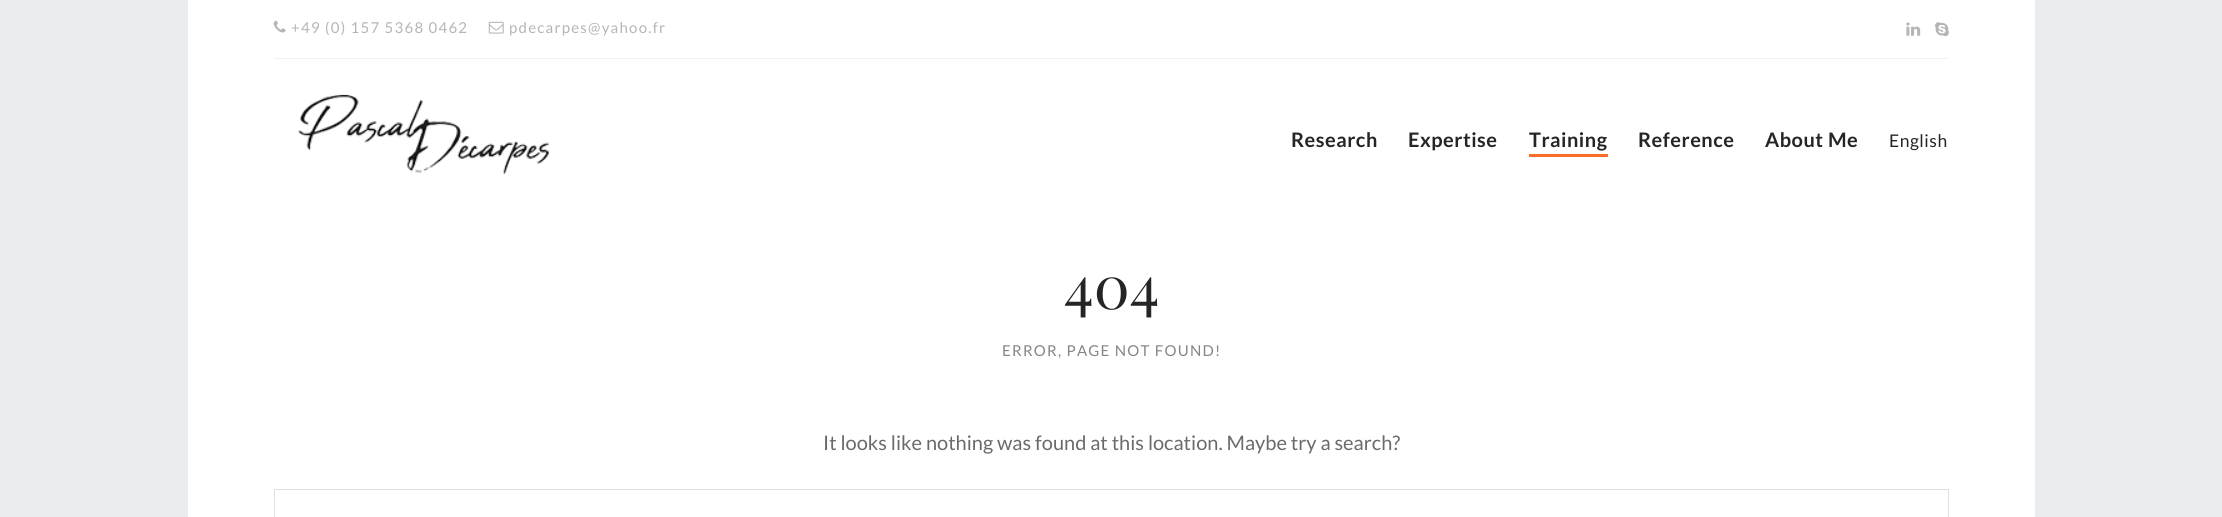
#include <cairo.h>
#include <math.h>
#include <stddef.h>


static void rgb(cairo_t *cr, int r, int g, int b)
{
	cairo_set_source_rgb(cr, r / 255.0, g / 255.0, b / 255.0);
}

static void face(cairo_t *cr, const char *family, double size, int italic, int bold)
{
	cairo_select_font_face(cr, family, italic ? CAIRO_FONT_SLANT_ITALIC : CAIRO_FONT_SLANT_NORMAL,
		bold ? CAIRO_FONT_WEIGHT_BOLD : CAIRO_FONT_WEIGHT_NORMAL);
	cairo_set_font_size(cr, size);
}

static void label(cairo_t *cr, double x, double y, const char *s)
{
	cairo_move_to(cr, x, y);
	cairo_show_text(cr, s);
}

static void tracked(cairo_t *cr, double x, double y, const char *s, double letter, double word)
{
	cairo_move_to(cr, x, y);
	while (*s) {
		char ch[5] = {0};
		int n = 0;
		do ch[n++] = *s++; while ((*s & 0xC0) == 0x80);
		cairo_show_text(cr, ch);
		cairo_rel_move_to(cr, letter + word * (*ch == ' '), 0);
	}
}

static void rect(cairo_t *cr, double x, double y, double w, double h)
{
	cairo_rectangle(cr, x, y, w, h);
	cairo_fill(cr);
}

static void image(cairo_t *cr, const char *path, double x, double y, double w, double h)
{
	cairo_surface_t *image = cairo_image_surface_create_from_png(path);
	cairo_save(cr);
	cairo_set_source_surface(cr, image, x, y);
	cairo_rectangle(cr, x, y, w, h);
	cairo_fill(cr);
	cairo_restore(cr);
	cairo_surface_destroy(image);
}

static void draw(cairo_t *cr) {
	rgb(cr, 234, 237, 238);
	cairo_paint(cr);
	rgb(cr, 255, 255, 255);
	rect(cr, 188, 0, 1847, 517);
	rgb(cr, 242, 242, 242);
	rect(cr, 274, 58, 1675, 1);
	image(cr, "image0.png", 273, 20, 13, 13);
	face(cr, "Lato", 15, 0, 0);
	rgb(cr, 181, 181, 181);
	tracked(cr, 291, 33, "+49 (0) 157 5368 0462", 1.25, 0);
	image(cr, "image1.png", 488, 21, 16, 13);
	tracked(cr, 509, 33, "pdecarpes@yahoo.fr", 1.25, 0);
	image(cr, "image2.png", 1906, 22, 15, 14);
	image(cr, "image3.png", 1935, 22, 14, 15);
	image(cr, "image4.png", 298, 94, 251, 80);
	face(cr, "Lato", 20, 0, 1);
	rgb(cr, 37, 37, 37);
	tracked(cr, 1291, 147, "Research", 0.5, 0);
	tracked(cr, 1408, 147, "Expertise", 0.5, 0);
	tracked(cr, 1529, 147, "Training", 0.5, 0);
	rgb(cr, 252, 110, 39);
	rect(cr, 1529, 154, 79, 3);
	rgb(cr, 37, 37, 37);
	tracked(cr, 1638, 147, "Reference", 0.5, 0);
	tracked(cr, 1765, 147, "About Me", 0.5, 0);
	face(cr, "Lato", 17.5, 0, 0);
	tracked(cr, 1889, 147, "English", 0.5, 0);
	face(cr, "Playfair Display", 60, 0, 0);
	label(cr, 1064, 309, "404");
	face(cr, "Lato", 15, 0, 0);
	rgb(cr, 133, 133, 133);
	tracked(cr, 1002, 356, "ERROR, PAGE NOT FOUND!", 1.25, 0);
	face(cr, "Lato", 20, 0, 0);
	rgb(cr, 106, 106, 106);
	label(cr, 823, 450, "It looks like nothing was found at this location. Maybe try a search?");
	cairo_rectangle(cr, 274.5, 489.5, 1674, 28);
	rgb(cr, 224, 224, 224);
	cairo_set_line_width(cr, 1);
	cairo_stroke(cr);
}

int main(void) {
	cairo_surface_t *surface = cairo_image_surface_create(CAIRO_FORMAT_RGB24, 2222, 517);
	cairo_t *cr = cairo_create(surface);
	cairo_font_options_t *options = cairo_font_options_create();
	cairo_font_options_set_hint_metrics(options, CAIRO_HINT_METRICS_OFF);
	cairo_font_options_set_hint_style(options, CAIRO_HINT_STYLE_NONE);
	cairo_set_font_options(cr, options);
	cairo_set_miter_limit(cr, 4);
	draw(cr);
	cairo_surface_write_to_png(surface, "render.png");
	cairo_font_options_destroy(options);
	cairo_destroy(cr);
	cairo_surface_destroy(surface);
	return 0;
}
